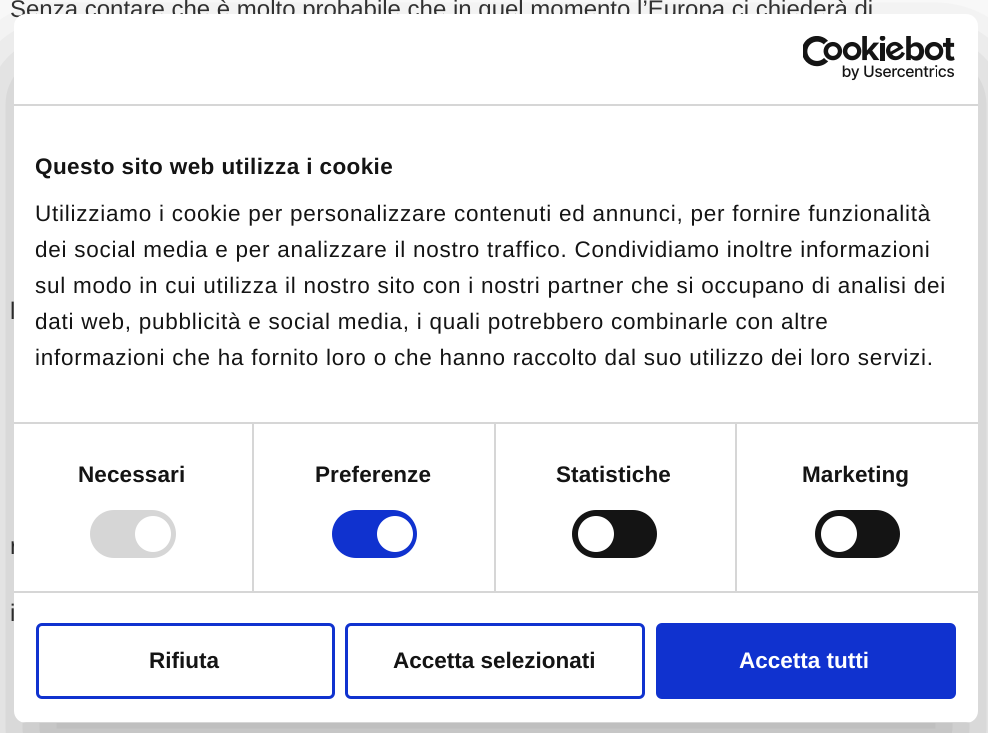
#include <cairo.h>
#include <math.h>
#include <stddef.h>


static void rgb(cairo_t *cr, int r, int g, int b)
{
	cairo_set_source_rgb(cr, r / 255.0, g / 255.0, b / 255.0);
}

static void face(cairo_t *cr, const char *family, double size, int italic, int bold)
{
	cairo_select_font_face(cr, family, italic ? CAIRO_FONT_SLANT_ITALIC : CAIRO_FONT_SLANT_NORMAL,
		bold ? CAIRO_FONT_WEIGHT_BOLD : CAIRO_FONT_WEIGHT_NORMAL);
	cairo_set_font_size(cr, size);
}

static void label(cairo_t *cr, double x, double y, const char *s)
{
	cairo_move_to(cr, x, y);
	cairo_show_text(cr, s);
}

static void tracked(cairo_t *cr, double x, double y, const char *s, double letter, double word)
{
	cairo_move_to(cr, x, y);
	while (*s) {
		char ch[5] = {0};
		int n = 0;
		do ch[n++] = *s++; while ((*s & 0xC0) == 0x80);
		cairo_show_text(cr, ch);
		cairo_rel_move_to(cr, letter + word * (*ch == ' '), 0);
	}
}

static void rect(cairo_t *cr, double x, double y, double w, double h)
{
	cairo_rectangle(cr, x, y, w, h);
	cairo_fill(cr);
}

static void rrect(cairo_t *cr, double x, double y, double w, double h, double r)
{
	cairo_new_sub_path(cr);
	cairo_arc(cr, x + w - r, y + h - r, r, 0, M_PI / 2);
	cairo_arc(cr, x + r, y + h - r, r, M_PI / 2, M_PI);
	cairo_arc(cr, x + r, y + r, r, M_PI, 1.5 * M_PI);
	cairo_arc(cr, x + w - r, y + r, r, 1.5 * M_PI, 2 * M_PI);
	cairo_close_path(cr);
}

static void soft_shadow(cairo_t *cr, double x, double y, double w, double h, double r, double blur, double alpha)
{
	cairo_push_group_with_content(cr, CAIRO_CONTENT_ALPHA);
	cairo_set_operator(cr, CAIRO_OPERATOR_SOURCE);
	for (int i = 15; i >= -15 && fmin(w, h) + blur * i / 3 > 0; i -= 2) {
		double e = blur * i / 6;
		cairo_set_source_rgba(cr, 0, 0, 0, alpha * erfc((i - 1) / 8.5) / 2);
		rrect(cr, x - e, y - e, w + 2 * e, h + 2 * e, fmax(0, fmin(r + e + blur * .6, fmin(w, h) / 2 + e)));
		cairo_fill(cr);
	}
	cairo_pattern_t *soft = cairo_pop_group(cr);
	cairo_mask(cr, soft);
	cairo_pattern_destroy(soft);
}

static void image(cairo_t *cr, const char *path, double x, double y, double w, double h)
{
	cairo_surface_t *image = cairo_image_surface_create_from_png(path);
	cairo_save(cr);
	cairo_set_source_surface(cr, image, x, y);
	cairo_rectangle(cr, x, y, w, h);
	cairo_fill(cr);
	cairo_restore(cr);
	cairo_surface_destroy(image);
}

static void draw(cairo_t *cr) {
	rgb(cr, 255, 255, 255);
	cairo_paint(cr);
	face(cr, "Liberation Sans", 24, 0, 0);
	rgb(cr, 51, 51, 51);
	label(cr, 10, 17, "Senza contare che è molto probabile che in quel momento l’Europa ci chiederà di");
	label(cr, 10, 319, "l");
	label(cr, 10, 554, "r");
	label(cr, 10, 621, "i");
	rgb(cr, 0, 0, 0);
	soft_shadow(cr, 14, 62, 964, 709, 12, 51, 0.3);
	rgb(cr, 255, 255, 255);
	rrect(cr, 14, 14, 964, 709, 12);
	cairo_fill(cr);
	rgb(cr, 214, 214, 214);
	rect(cr, 14, 104, 964, 2);
	image(cr, "image0.png", 803, 36, 152, 45);
	rect(cr, 252, 423, 2, 168);
	rect(cr, 494, 423, 2, 168);
	rect(cr, 735, 423, 2, 168);
	rect(cr, 14, 422, 964, 2);
	face(cr, "Liberation Sans", 22.5, 0, 1);
	rgb(cr, 20, 20, 20);
	tracked(cr, 35, 174, "Questo sito web utilizza i cookie", 0.4, 0);
	face(cr, "Liberation Sans", 22.5, 0, 0);
	tracked(cr, 35, 221, "Utilizziamo i cookie per personalizzare contenuti ed annunci, per fornire funzionalità", 0.75, 0);
	tracked(cr, 35, 257, "dei social media e per analizzare il nostro traffico. Condividiamo inoltre informazioni", 0.75, 0);
	tracked(cr, 35, 293, "sul modo in cui utilizza il nostro sito con i nostri partner che si occupano di analisi dei", 0.75, 0);
	tracked(cr, 35, 329, "dati web, pubblicità e social media, i quali potrebbero combinarle con altre", 0.75, 0);
	tracked(cr, 35, 365, "informazioni che ha fornito loro o che hanno raccolto dal suo utilizzo dei loro servizi.", 0.75, 0);
	rgb(cr, 214, 214, 214);
	rect(cr, 14, 591, 964, 2);
	face(cr, "Liberation Sans", 22.5, 0, 1);
	rgb(cr, 20, 20, 20);
	tracked(cr, 78, 482, "Necessari", 0.1, 0);
	rgb(cr, 214, 214, 214);
	rrect(cr, 90, 510, 86, 48, 24);
	cairo_fill(cr);
	rgb(cr, 255, 255, 255);
	cairo_arc(cr, 153, 534, 18, 0, 2 * M_PI);
	cairo_fill(cr);
	rgb(cr, 20, 20, 20);
	tracked(cr, 315, 482, "Preferenze", 0.1, 0);
	rgb(cr, 16, 50, 207);
	rrect(cr, 332, 510, 85, 48, 24);
	cairo_fill(cr);
	rgb(cr, 255, 255, 255);
	cairo_arc(cr, 395, 534, 18, 0, 2 * M_PI);
	cairo_fill(cr);
	rgb(cr, 20, 20, 20);
	tracked(cr, 556, 482, "Statistiche", 0.1, 0);
	rrect(cr, 572, 510, 85, 48, 24);
	cairo_fill(cr);
	rgb(cr, 255, 255, 255);
	cairo_arc(cr, 596, 534, 18, 0, 2 * M_PI);
	cairo_fill(cr);
	rgb(cr, 20, 20, 20);
	tracked(cr, 802, 482, "Marketing", 0.1, 0);
	rrect(cr, 815, 510, 85, 48, 24);
	cairo_fill(cr);
	rgb(cr, 255, 255, 255);
	cairo_arc(cr, 839, 534, 18, 0, 2 * M_PI);
	cairo_fill(cr);
	cairo_save(cr);
	rrect(cr, 14, 14, 964, 709, 12);
	cairo_clip(cr);
	rgb(cr, 214, 214, 214);
	rect(cr, 14, 722, 964, 1);
	cairo_restore(cr);
	rrect(cr, 37.5, 624.5, 296, 73, 4.5);
	rgb(cr, 16, 50, 207);
	cairo_set_line_width(cr, 3);
	cairo_stroke(cr);
	rgb(cr, 20, 20, 20);
	label(cr, 149, 668, "Rifiuta");
	rrect(cr, 346.5, 624.5, 297, 73, 4.5);
	rgb(cr, 16, 50, 207);
	cairo_stroke(cr);
	rgb(cr, 20, 20, 20);
	label(cr, 393, 668, "Accetta selezionati");
	rgb(cr, 16, 50, 207);
	rrect(cr, 657.5, 624.5, 297, 73, 4.5);
	cairo_fill_preserve(cr);
	cairo_stroke(cr);
	rgb(cr, 255, 255, 255);
	label(cr, 739, 668, "Accetta tutti");
}

int main(void) {
	cairo_surface_t *surface = cairo_image_surface_create(CAIRO_FORMAT_RGB24, 988, 733);
	cairo_t *cr = cairo_create(surface);
	cairo_font_options_t *options = cairo_font_options_create();
	cairo_font_options_set_hint_metrics(options, CAIRO_HINT_METRICS_OFF);
	cairo_font_options_set_hint_style(options, CAIRO_HINT_STYLE_NONE);
	cairo_set_font_options(cr, options);
	cairo_set_miter_limit(cr, 4);
	draw(cr);
	cairo_surface_write_to_png(surface, "render.png");
	cairo_font_options_destroy(options);
	cairo_destroy(cr);
	cairo_surface_destroy(surface);
	return 0;
}
